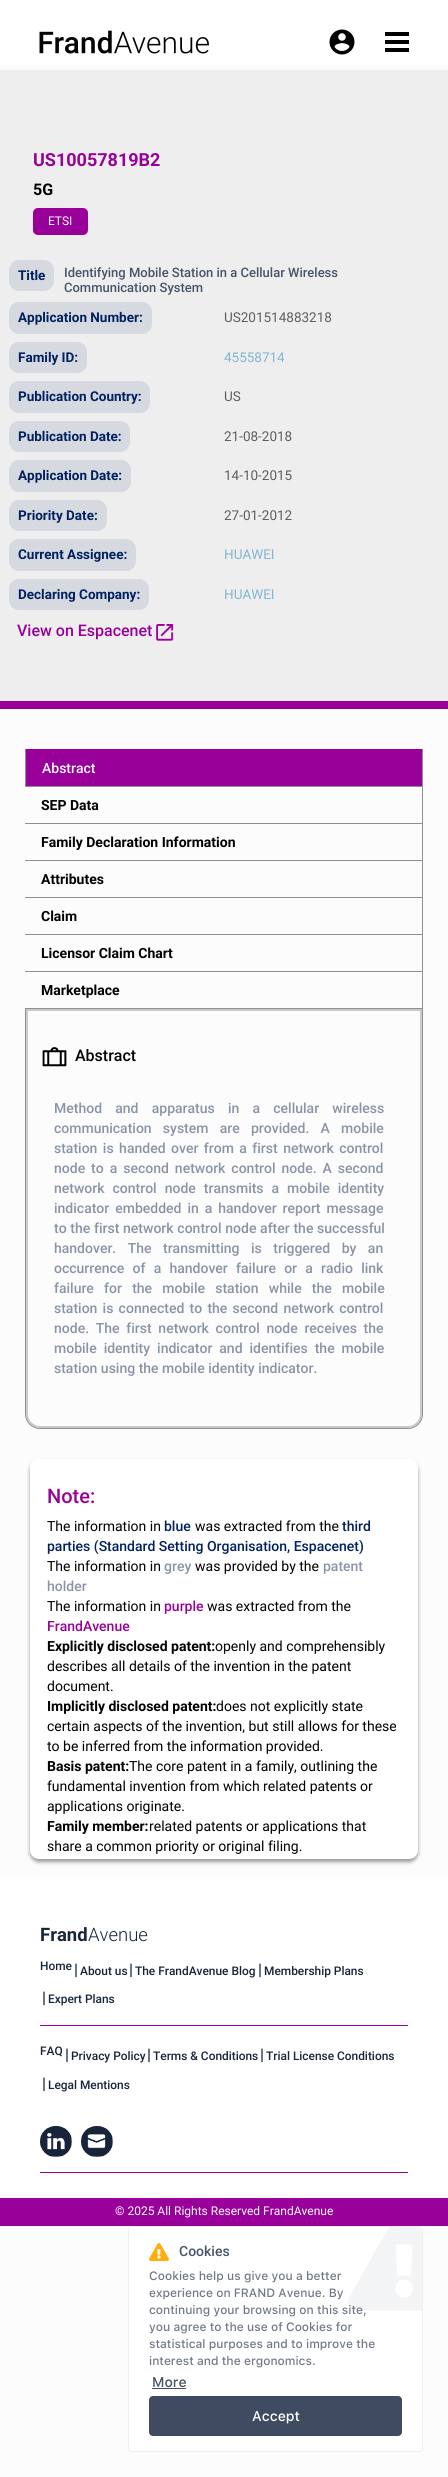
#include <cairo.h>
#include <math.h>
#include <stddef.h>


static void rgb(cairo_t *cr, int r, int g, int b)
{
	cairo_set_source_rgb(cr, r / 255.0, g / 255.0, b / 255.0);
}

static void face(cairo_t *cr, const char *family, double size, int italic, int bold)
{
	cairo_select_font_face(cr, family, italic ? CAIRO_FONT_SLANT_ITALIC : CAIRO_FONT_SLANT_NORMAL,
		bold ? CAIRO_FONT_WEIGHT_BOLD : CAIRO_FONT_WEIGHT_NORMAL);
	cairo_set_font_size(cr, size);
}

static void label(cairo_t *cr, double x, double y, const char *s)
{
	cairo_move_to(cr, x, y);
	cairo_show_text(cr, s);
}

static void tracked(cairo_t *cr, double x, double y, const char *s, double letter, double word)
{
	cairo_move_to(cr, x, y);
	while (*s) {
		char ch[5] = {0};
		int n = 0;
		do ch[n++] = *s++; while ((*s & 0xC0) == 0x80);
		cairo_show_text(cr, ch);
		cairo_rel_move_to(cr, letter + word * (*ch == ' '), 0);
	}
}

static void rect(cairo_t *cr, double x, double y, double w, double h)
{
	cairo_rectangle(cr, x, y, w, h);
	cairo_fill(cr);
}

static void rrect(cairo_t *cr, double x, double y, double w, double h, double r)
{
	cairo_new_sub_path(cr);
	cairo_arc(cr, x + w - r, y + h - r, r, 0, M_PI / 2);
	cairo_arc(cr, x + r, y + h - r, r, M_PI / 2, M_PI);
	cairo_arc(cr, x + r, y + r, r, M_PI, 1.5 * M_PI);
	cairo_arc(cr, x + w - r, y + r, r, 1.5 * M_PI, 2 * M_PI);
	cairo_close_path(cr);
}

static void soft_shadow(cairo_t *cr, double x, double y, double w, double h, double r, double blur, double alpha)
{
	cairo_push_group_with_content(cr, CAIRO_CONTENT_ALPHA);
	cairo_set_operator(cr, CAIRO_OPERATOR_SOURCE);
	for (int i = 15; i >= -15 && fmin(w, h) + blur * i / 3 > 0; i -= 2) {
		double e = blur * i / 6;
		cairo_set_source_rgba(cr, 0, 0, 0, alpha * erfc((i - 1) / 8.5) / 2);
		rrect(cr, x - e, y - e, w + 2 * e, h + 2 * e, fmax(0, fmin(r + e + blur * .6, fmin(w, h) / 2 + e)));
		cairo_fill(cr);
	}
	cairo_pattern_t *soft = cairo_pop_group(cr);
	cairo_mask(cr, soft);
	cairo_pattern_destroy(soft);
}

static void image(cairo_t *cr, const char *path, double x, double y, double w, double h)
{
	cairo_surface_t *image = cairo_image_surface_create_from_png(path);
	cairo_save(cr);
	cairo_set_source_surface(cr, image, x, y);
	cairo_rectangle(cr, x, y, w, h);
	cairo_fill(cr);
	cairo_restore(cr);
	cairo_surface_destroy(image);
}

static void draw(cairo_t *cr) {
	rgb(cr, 252, 252, 253);
	cairo_paint(cr);
	rgb(cr, 255, 255, 255);
	rect(cr, 0, 0, 448, 65);
	image(cr, "image0.png", 39, 30, 170, 24);
	image(cr, "image1.png", 329, 29, 26, 26);
	rgb(cr, 0, 0, 0);
	rect(cr, 385, 32, 24, 4);
	rect(cr, 385, 40, 24, 4);
	rect(cr, 385, 48, 24, 4);
	rgb(cr, 238, 238, 238);
	rect(cr, 0, 70, 448, 631);
	rgb(cr, 153, 0, 153);
	rect(cr, 0, 701, 448, 8);
	face(cr, "Roboto", 18, 0, 1);
	label(cr, 33, 166, "US10057819B2");
	face(cr, "Roboto", 16, 0, 1);
	rgb(cr, 0, 0, 0);
	label(cr, 33, 195, "5G");
	rgb(cr, 153, 0, 153);
	rrect(cr, 33, 208, 55, 27, 5);
	cairo_fill(cr);
	face(cr, "Roboto", 12, 0, 0);
	rgb(cr, 255, 255, 255);
	label(cr, 48, 225, "ETSI");
	rgb(cr, 214, 217, 224);
	rrect(cr, 9, 260, 45, 31, 10);
	cairo_fill(cr);
	face(cr, "Roboto", 13.5, 0, 1);
	rgb(cr, 0, 32, 96);
	label(cr, 18, 280, "Title");
	face(cr, "Roboto Medium", 13, 0, 0);
	rgb(cr, 72, 84, 105);
	label(cr, 64, 277, "Identifying Mobile Station in a Cellular Wireless");
	label(cr, 64, 292, "Communication System");
	rgb(cr, 214, 217, 224);
	rrect(cr, 9, 302, 143, 32, 10);
	cairo_fill(cr);
	face(cr, "Roboto", 13.5, 0, 1);
	rgb(cr, 0, 32, 96);
	label(cr, 18, 322, "Application Number:");
	face(cr, "Roboto", 13.5, 0, 0);
	rgb(cr, 95, 95, 95);
	label(cr, 224, 322, "US201514883218");
	rgb(cr, 214, 217, 224);
	rrect(cr, 9, 342, 78, 31, 10);
	cairo_fill(cr);
	face(cr, "Roboto", 13.5, 0, 1);
	rgb(cr, 0, 32, 96);
	label(cr, 18, 362, "Family ID:");
	face(cr, "Roboto", 13.5, 0, 0);
	rgb(cr, 132, 181, 210);
	label(cr, 224, 362, "45558714");
	rgb(cr, 214, 217, 224);
	rrect(cr, 9, 381, 141, 32, 10);
	cairo_fill(cr);
	face(cr, "Roboto", 13.5, 0, 1);
	rgb(cr, 0, 32, 96);
	label(cr, 18, 401, "Publication Country:");
	face(cr, "Roboto", 13.5, 0, 0);
	rgb(cr, 95, 95, 95);
	label(cr, 224, 401, "US");
	rgb(cr, 214, 217, 224);
	rrect(cr, 9, 421, 121, 31, 10);
	cairo_fill(cr);
	face(cr, "Roboto", 13.5, 0, 1);
	rgb(cr, 0, 32, 96);
	label(cr, 18, 441, "Publication Date:");
	face(cr, "Roboto", 13.5, 0, 0);
	rgb(cr, 95, 95, 95);
	label(cr, 224, 441, "21-08-2018");
	rgb(cr, 214, 217, 224);
	rrect(cr, 9, 460, 122, 32, 10);
	cairo_fill(cr);
	face(cr, "Roboto", 13.5, 0, 1);
	rgb(cr, 0, 32, 96);
	label(cr, 18, 480, "Application Date:");
	face(cr, "Roboto", 13.5, 0, 0);
	rgb(cr, 95, 95, 95);
	label(cr, 224, 480, "14-10-2015");
	rgb(cr, 214, 217, 224);
	rrect(cr, 9, 500, 98, 31, 10);
	cairo_fill(cr);
	face(cr, "Roboto", 13.5, 0, 1);
	rgb(cr, 0, 32, 96);
	label(cr, 18, 520, "Priority Date:");
	face(cr, "Roboto", 13.5, 0, 0);
	rgb(cr, 95, 95, 95);
	label(cr, 224, 520, "27-01-2012");
	rgb(cr, 214, 217, 224);
	rrect(cr, 9, 539, 127, 32, 10);
	cairo_fill(cr);
	face(cr, "Roboto", 13.5, 0, 1);
	rgb(cr, 0, 32, 96);
	label(cr, 18, 559, "Current Assignee:");
	face(cr, "Roboto", 13.5, 0, 0);
	rgb(cr, 132, 181, 210);
	label(cr, 224, 559, "HUAWEI");
	rgb(cr, 214, 217, 224);
	rrect(cr, 9, 579, 140, 31, 10);
	cairo_fill(cr);
	face(cr, "Roboto", 13.5, 0, 1);
	rgb(cr, 0, 32, 96);
	label(cr, 18, 599, "Declaring Company:");
	face(cr, "Roboto", 13.5, 0, 0);
	rgb(cr, 132, 181, 210);
	label(cr, 224, 599, "HUAWEI");
	face(cr, "Roboto Medium", 16, 0, 0);
	rgb(cr, 153, 0, 153);
	label(cr, 17, 636, "View on Espacenet");
	image(cr, "image2.png", 156, 624, 18, 17);
	rect(cr, 26, 749, 396, 37);
	rgb(cr, 144, 144, 144);
	rect(cr, 422, 749, 1, 37);
	rect(cr, 25, 749, 1, 37);
	face(cr, "Roboto Medium", 14, 0, 0);
	rgb(cr, 255, 255, 255);
	label(cr, 42, 773, "Abstract");
	rgb(cr, 144, 144, 144);
	rect(cr, 25, 786, 398, 1);
	rect(cr, 422, 786, 1, 37);
	face(cr, "Roboto", 14, 0, 1);
	rgb(cr, 0, 0, 0);
	label(cr, 41, 810, "SEP Data");
	rgb(cr, 144, 144, 144);
	rect(cr, 25, 823, 398, 1);
	rect(cr, 422, 823, 1, 37);
	rgb(cr, 0, 0, 0);
	label(cr, 41, 847, "Family Declaration Information");
	rgb(cr, 144, 144, 144);
	rect(cr, 25, 860, 398, 1);
	rect(cr, 422, 860, 1, 37);
	rgb(cr, 0, 0, 0);
	label(cr, 41, 884, "Attributes");
	rgb(cr, 144, 144, 144);
	rect(cr, 25, 897, 398, 1);
	rect(cr, 422, 897, 1, 37);
	rgb(cr, 0, 0, 0);
	label(cr, 41, 921, "Claim");
	rgb(cr, 144, 144, 144);
	rect(cr, 25, 934, 398, 1);
	rect(cr, 422, 934, 1, 37);
	rgb(cr, 0, 0, 0);
	label(cr, 41, 958, "Licensor Claim Chart");
	rgb(cr, 144, 144, 144);
	rect(cr, 25, 971, 398, 1);
	rect(cr, 422, 971, 1, 37);
	rgb(cr, 0, 0, 0);
	label(cr, 41, 995, "Marketplace");
	cairo_new_path(cr);
	cairo_move_to(cr, 27, 1010);
	cairo_line_to(cr, 421, 1010);
	cairo_line_to(cr, 421, 1414);
	cairo_curve_to(cr, 421, 1421, 415, 1427, 408, 1427);
	cairo_line_to(cr, 40, 1427);
	cairo_curve_to(cr, 33, 1427, 27, 1421, 27, 1414);
	cairo_close_path(cr);
	rgb(cr, 202, 202, 202);
	cairo_stroke(cr);
	cairo_new_path(cr);
	cairo_move_to(cr, 25.5, 1008.5);
	cairo_line_to(cr, 422.5, 1008.5);
	cairo_line_to(cr, 422.5, 1414);
	cairo_curve_to(cr, 422.5, 1422, 416, 1428.5, 408, 1428.5);
	cairo_line_to(cr, 40, 1428.5);
	cairo_curve_to(cr, 32, 1428.5, 25.5, 1422, 25.5, 1414);
	cairo_close_path(cr);
	rgb(cr, 144, 144, 144);
	cairo_set_line_width(cr, 1);
	cairo_stroke(cr);
	image(cr, "image3.png", 42, 1047, 25, 20);
	face(cr, "Roboto Medium", 16, 0, 0);
	rgb(cr, 0, 0, 0);
	label(cr, 75, 1061, "Abstract");
	face(cr, "Roboto Medium", 14, 0, 0);
	rgb(cr, 138, 148, 166);
	tracked(cr, 54, 1113, "Method and apparatus in a cellular wireless", 0, 9.75);
	tracked(cr, 54, 1133, "communication system are provided. A mobile", 0, 7.75);
	tracked(cr, 54, 1153, "station is handed over from a first network control", 0, 2);
	tracked(cr, 54, 1173, "node to a second network control node. A second", 0, 2.5);
	tracked(cr, 54, 1193, "network control node transmits a mobile identity", 0, 4.5);
	tracked(cr, 54, 1213, "indicator embedded in a handover report message", 0, 2.5);
	tracked(cr, 54, 1233, "to the first network control node after the successful", 0, 0.25);
	tracked(cr, 54, 1253, "handover. The transmitting is triggered by an", 0, 8);
	tracked(cr, 54, 1273, "occurrence of a handover failure or a radio link", 0, 4.75);
	tracked(cr, 54, 1293, "failure for the mobile station while the mobile", 0, 6.75);
	tracked(cr, 54, 1313, "station is connected to the second network control", 0, 1.75);
	tracked(cr, 54, 1333, "node. The first network control node receives the", 0, 3.25);
	tracked(cr, 54, 1353, "mobile identity indicator and identifies the mobile", 0, 3.5);
	label(cr, 54, 1373, "station using the mobile identity indicator.");
	rgb(cr, 0, 0, 0);
	soft_shadow(cr, 30, 1462, 388, 400, 9, 2, 0.4);
	rgb(cr, 255, 255, 255);
	rrect(cr, 30, 1459, 388, 400, 9);
	cairo_fill(cr);
	face(cr, "Roboto Medium", 20, 0, 0);
	rgb(cr, 153, 0, 153);
	label(cr, 47, 1503, "Note:");
	face(cr, "Roboto", 14, 0, 0);
	rgb(cr, 0, 0, 0);
	label(cr, 47, 1531, "The information in");
	face(cr, "Roboto Medium", 14, 0, 0);
	rgb(cr, 0, 32, 96);
	label(cr, 164, 1531, "blue");
	face(cr, "Roboto", 14, 0, 0);
	rgb(cr, 0, 0, 0);
	label(cr, 195, 1531, "was extracted from the");
	face(cr, "Roboto Medium", 14, 0, 0);
	rgb(cr, 0, 32, 96);
	label(cr, 342, 1531, "third");
	label(cr, 47, 1551, "parties (Standard Setting Organisation, Espacenet)");
	face(cr, "Roboto", 14, 0, 0);
	rgb(cr, 0, 0, 0);
	label(cr, 47, 1571, "The information in");
	face(cr, "Roboto Medium", 14, 0, 0);
	rgb(cr, 138, 148, 166);
	label(cr, 164, 1571, "grey");
	face(cr, "Roboto", 14, 0, 0);
	rgb(cr, 0, 0, 0);
	label(cr, 195, 1571, "was provided by the");
	face(cr, "Roboto Medium", 14, 0, 0);
	rgb(cr, 138, 148, 166);
	label(cr, 323, 1571, "patent");
	label(cr, 47, 1591, "holder");
	face(cr, "Roboto", 14, 0, 0);
	rgb(cr, 0, 0, 0);
	label(cr, 47, 1611, "The information in");
	face(cr, "Roboto Medium", 14, 0, 0);
	rgb(cr, 153, 0, 153);
	label(cr, 164, 1611, "purple");
	face(cr, "Roboto", 14, 0, 0);
	rgb(cr, 0, 0, 0);
	label(cr, 207, 1611, "was extracted from the");
	face(cr, "Roboto Medium", 14, 0, 0);
	rgb(cr, 153, 0, 153);
	label(cr, 47, 1631, "FrandAvenue");
	face(cr, "Roboto", 14, 0, 1);
	rgb(cr, 0, 0, 0);
	label(cr, 47, 1651, "Explicitly disclosed patent:");
	face(cr, "Roboto", 14, 0, 0);
	label(cr, 215, 1651, "openly and comprehensibly");
	label(cr, 47, 1671, "describes all details of the invention in the patent");
	label(cr, 47, 1691, "document.");
	face(cr, "Roboto", 14, 0, 1);
	label(cr, 47, 1711, "Implicitly disclosed patent:");
	face(cr, "Roboto", 14, 0, 0);
	label(cr, 216, 1711, "does not explicitly state");
	label(cr, 47, 1731, "certain aspects of the invention, but still allows for these");
	label(cr, 47, 1751, "to be inferred from the information provided.");
	face(cr, "Roboto", 14, 0, 1);
	label(cr, 47, 1771, "Basis patent:");
	face(cr, "Roboto", 14, 0, 0);
	label(cr, 129, 1771, "The core patent in a family, outlining the");
	label(cr, 47, 1791, "fundamental invention from which related patents or");
	label(cr, 47, 1811, "applications originate.");
	face(cr, "Roboto", 14, 0, 1);
	label(cr, 47, 1831, "Family member:");
	face(cr, "Roboto", 14, 0, 0);
	label(cr, 149, 1831, "related patents or applications that");
	label(cr, 47, 1851, "share a common priority or original filing.");
	rgb(cr, 255, 255, 255);
	rect(cr, 0, 1879, 448, 319);
	face(cr, "Roboto", 18.5, 0, 1);
	rgb(cr, 23, 36, 58);
	label(cr, 40, 1941, "Frand");
	face(cr, "Roboto Light", 18.5, 0, 0);
	label(cr, 88, 1941, "Avenue");
	face(cr, "Roboto Medium", 11.9, 0, 0);
	label(cr, 40, 1970, "Home");
	face(cr, "Roboto Medium", 16, 0, 0);
	label(cr, 74, 1975, "|");
	face(cr, "Roboto Medium", 11.9, 0, 0);
	label(cr, 80, 1975, "About us");
	face(cr, "Roboto Medium", 16, 0, 0);
	label(cr, 129, 1975, "|");
	face(cr, "Roboto Medium", 11.9, 0, 0);
	label(cr, 135, 1975, "The FrandAvenue Blog");
	face(cr, "Roboto Medium", 16, 0, 0);
	label(cr, 258, 1975, "|");
	face(cr, "Roboto Medium", 11.9, 0, 0);
	label(cr, 264, 1975, "Membership Plans");
	face(cr, "Roboto Medium", 16, 0, 0);
	label(cr, 42, 2003, "|");
	face(cr, "Roboto Medium", 11.9, 0, 0);
	label(cr, 48, 2003, "Expert Plans");
	rgb(cr, 153, 0, 153);
	rect(cr, 40, 2025, 368, 1);
	rgb(cr, 23, 36, 58);
	label(cr, 40, 2055, "FAQ");
	face(cr, "Roboto Medium", 16, 0, 0);
	label(cr, 65, 2060, "|");
	face(cr, "Roboto Medium", 11.9, 0, 0);
	label(cr, 71, 2060, "Privacy Policy");
	face(cr, "Roboto Medium", 16, 0, 0);
	label(cr, 147, 2060, "|");
	face(cr, "Roboto Medium", 11.9, 0, 0);
	label(cr, 153, 2060, "Terms & Conditions");
	face(cr, "Roboto Medium", 16, 0, 0);
	label(cr, 260, 2060, "|");
	face(cr, "Roboto Medium", 11.9, 0, 0);
	label(cr, 266, 2060, "Trial License Conditions");
	face(cr, "Roboto Medium", 16, 0, 0);
	label(cr, 42, 2089, "|");
	face(cr, "Roboto Medium", 11.9, 0, 0);
	label(cr, 48, 2089, "Legal Mentions");
	image(cr, "image4.png", 40, 2126, 32, 31);
	image(cr, "image5.png", 81, 2126, 32, 31);
	rgb(cr, 153, 0, 153);
	rect(cr, 40, 2172, 368, 1);
	rect(cr, 0, 2198, 448, 28);
	face(cr, "Roboto", 12, 0, 0);
	rgb(cr, 255, 255, 255);
	label(cr, 115, 2215, "© 2025 All Rights Reserved FrandAvenue");
	rrect(cr, 128.5, 2226.5, 294, 225, 3.5);
	cairo_fill_preserve(cr);
	rgb(cr, 239, 239, 239);
	cairo_stroke(cr);
	image(cr, "image6.png", 149, 2243, 20, 18);
	face(cr, "Roboto Medium", 14, 0, 0);
	rgb(cr, 72, 84, 105);
	label(cr, 179, 2256, "Cookies");
	image(cr, "image7.png", 348, 2227, 74, 84);
	face(cr, "SF Pro Text Medium", 12, 0, 0);
	rgb(cr, 113, 121, 135);
	label(cr, 149, 2280, "Cookies help us give you a better");
	label(cr, 149, 2297, "experience on FRAND Avenue. By");
	label(cr, 149, 2314, "continuing your browsing on this site,");
	label(cr, 149, 2331, "you agree to the use of Cookies for");
	label(cr, 149, 2348, "statistical purposes and to improve the");
	label(cr, 149, 2365, "interest and the ergonomics.");
	face(cr, "SF Pro Text Medium", 14, 0, 0);
	rgb(cr, 69, 80, 97);
	label(cr, 152, 2387, "More");
	rect(cr, 152, 2388, 34, 1);
	rgb(cr, 63, 75, 97);
	rrect(cr, 149, 2396, 253, 40, 4);
	cairo_fill(cr);
	rgb(cr, 255, 255, 255);
	label(cr, 252, 2421, "Accept");
}

int main(void) {
	cairo_surface_t *surface = cairo_image_surface_create(CAIRO_FORMAT_RGB24, 448, 2477);
	cairo_t *cr = cairo_create(surface);
	cairo_font_options_t *options = cairo_font_options_create();
	cairo_font_options_set_hint_metrics(options, CAIRO_HINT_METRICS_OFF);
	cairo_font_options_set_hint_style(options, CAIRO_HINT_STYLE_NONE);
	cairo_set_font_options(cr, options);
	cairo_set_miter_limit(cr, 4);
	draw(cr);
	cairo_surface_write_to_png(surface, "render.png");
	cairo_font_options_destroy(options);
	cairo_destroy(cr);
	cairo_surface_destroy(surface);
	return 0;
}
